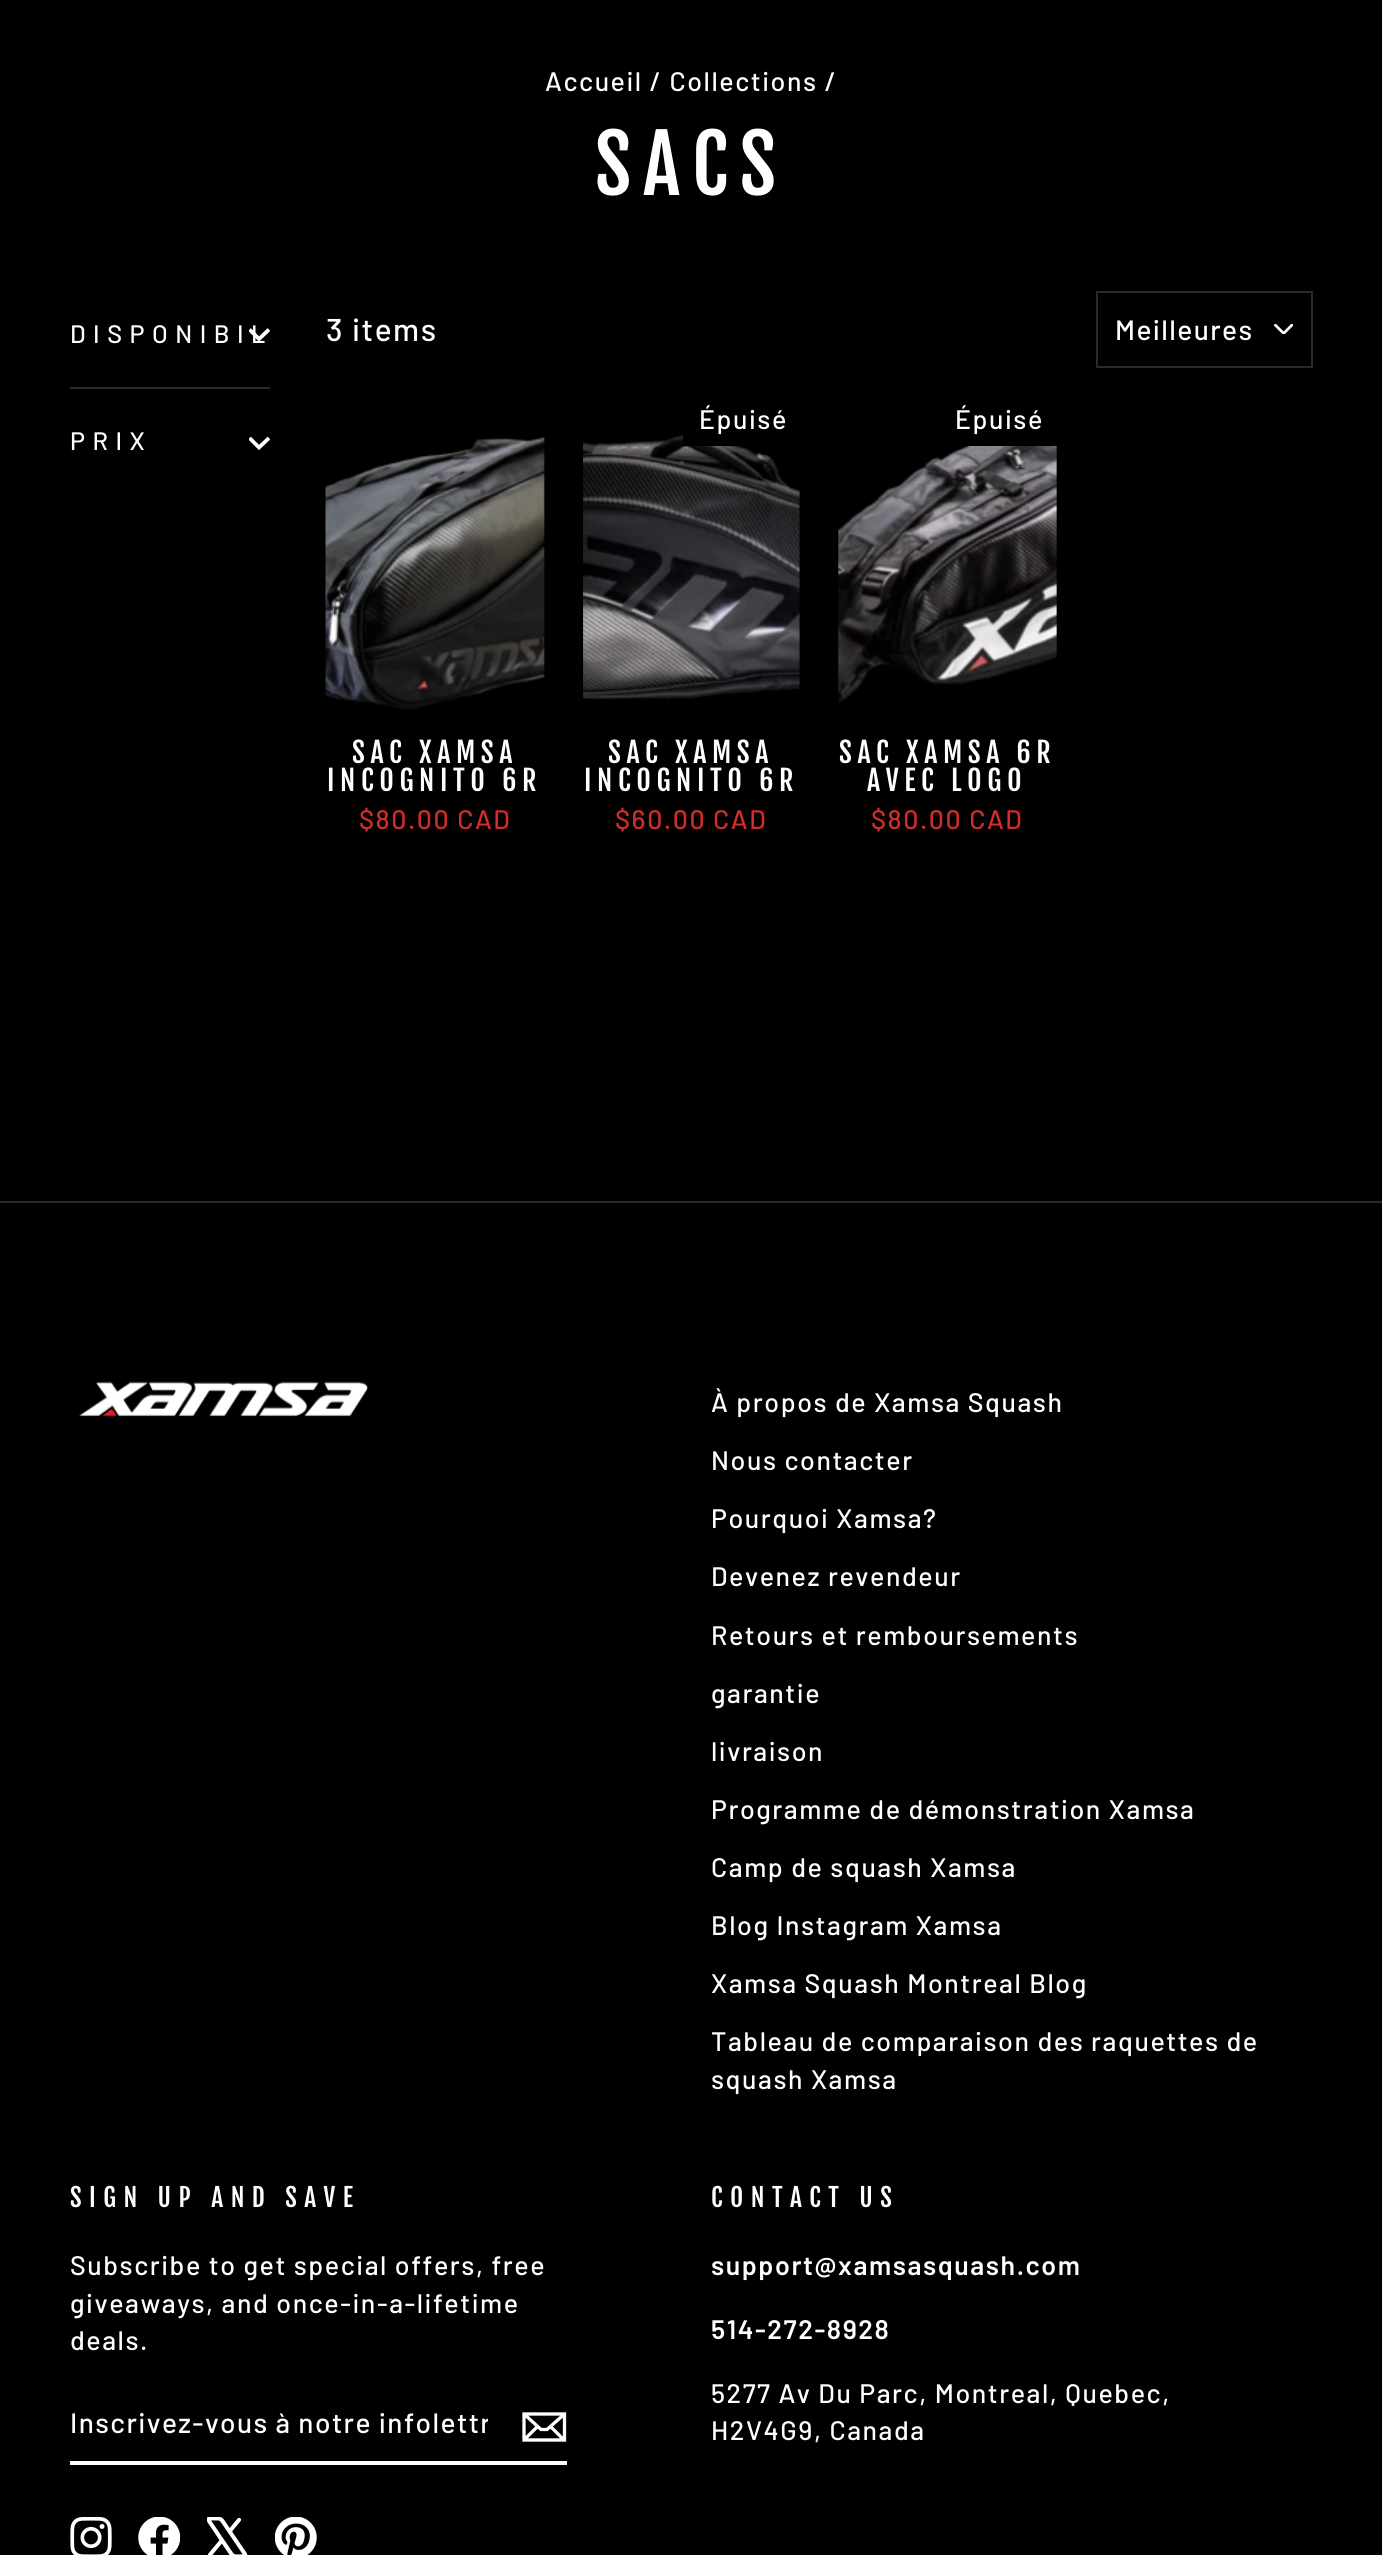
#include <cairo.h>
#include <math.h>
#include <stddef.h>


static void rgb(cairo_t *cr, int r, int g, int b)
{
	cairo_set_source_rgb(cr, r / 255.0, g / 255.0, b / 255.0);
}

static void face(cairo_t *cr, const char *family, double size, int italic, int bold)
{
	cairo_select_font_face(cr, family, italic ? CAIRO_FONT_SLANT_ITALIC : CAIRO_FONT_SLANT_NORMAL,
		bold ? CAIRO_FONT_WEIGHT_BOLD : CAIRO_FONT_WEIGHT_NORMAL);
	cairo_set_font_size(cr, size);
}

static void tracked(cairo_t *cr, double x, double y, const char *s, double letter, double word)
{
	cairo_move_to(cr, x, y);
	while (*s) {
		char ch[5] = {0};
		int n = 0;
		do ch[n++] = *s++; while ((*s & 0xC0) == 0x80);
		cairo_show_text(cr, ch);
		cairo_rel_move_to(cr, letter + word * (*ch == ' '), 0);
	}
}

static void rect(cairo_t *cr, double x, double y, double w, double h)
{
	cairo_rectangle(cr, x, y, w, h);
	cairo_fill(cr);
}

static void image(cairo_t *cr, const char *path, double x, double y, double w, double h)
{
	cairo_surface_t *image = cairo_image_surface_create_from_png(path);
	cairo_save(cr);
	cairo_set_source_surface(cr, image, x, y);
	cairo_rectangle(cr, x, y, w, h);
	cairo_fill(cr);
	cairo_restore(cr);
	cairo_surface_destroy(image);
}

static void draw(cairo_t *cr) {
	rgb(cr, 0, 0, 0);
	cairo_paint(cr);
	face(cr, "Barlow Medium", 26.75, 0, 0);
	rgb(cr, 255, 255, 255);
	tracked(cr, 545, 91, "Accueil / Collections /", 1.55, 0);
	face(cr, "Fjalla One", 79, 0, 0);
	tracked(cr, 595, 195, "SACS", 12, 0);
	face(cr, "Barlow Medium", 25.25, 0, 0);
	tracked(cr, 70, 343, "DISPONIBIL", 7.5, 0);
	cairo_save(cr);
	cairo_rectangle(cr, 249, 324, 21, 21);
	cairo_clip(cr);
	cairo_new_path(cr);
	cairo_move_to(cr, 249.5, 329.5);
	cairo_line_to(cr, 259, 339);
	cairo_line_to(cr, 269, 329.5);
	cairo_set_line_width(cr, 3.8);
	cairo_stroke(cr);
	cairo_restore(cr);
	rgb(cr, 43, 42, 39);
	rect(cr, 70, 387, 200, 2);
	rgb(cr, 255, 255, 255);
	tracked(cr, 70, 450, "PRIX", 7.5, 0);
	cairo_save(cr);
	cairo_rectangle(cr, 249, 432, 21, 21);
	cairo_clip(cr);
	cairo_new_path(cr);
	cairo_move_to(cr, 249.5, 438);
	cairo_line_to(cr, 259, 447.5);
	cairo_line_to(cr, 269, 438);
	cairo_set_line_width(cr, 3.8);
	cairo_stroke(cr);
	cairo_restore(cr);
	face(cr, "Barlow Medium", 31.5, 0, 0);
	tracked(cr, 326, 341, "3 items", 1.55, 0);
	image(cr, "image0.png", 1274, 324, 19, 10);
	cairo_rectangle(cr, 1097, 292, 215, 75);
	rgb(cr, 43, 42, 39);
	cairo_stroke(cr);
	face(cr, "Barlow Medium", 28, 0, 0);
	rgb(cr, 255, 255, 255);
	tracked(cr, 1115, 340, "Meilleures", 1.4, 0);
	image(cr, "image1.png", 325, 437, 220, 273);
	face(cr, "Fjalla One", 28, 0, 0);
	tracked(cr, 352, 763, "SAC XAMSA", 5.6, 0);
	tracked(cr, 327, 791, "INCOGNITO 6R", 5.6, 0);
	face(cr, "Barlow Medium", 26.75, 0, 0);
	rgb(cr, 212, 43, 43);
	tracked(cr, 359, 829, "$80.00 CAD", 1.55, 0);
	image(cr, "image2.png", 583, 435, 217, 265);
	rgb(cr, 0, 0, 0);
	rect(cr, 683, 435, 55, 11);
	rgb(cr, 255, 255, 255);
	tracked(cr, 699, 429, "Épuisé", 1.55, 0);
	face(cr, "Fjalla One", 28, 0, 0);
	tracked(cr, 608, 763, "SAC XAMSA", 5.6, 0);
	tracked(cr, 584, 791, "INCOGNITO 6R", 5.6, 0);
	face(cr, "Barlow Medium", 26.75, 0, 0);
	rgb(cr, 212, 43, 43);
	tracked(cr, 615, 829, "$60.00 CAD", 1.55, 0);
	rgb(cr, 255, 255, 255);
	tracked(cr, 955, 429, "Épuisé", 1.55, 0);
	image(cr, "image3.png", 838, 446, 219, 257);
	face(cr, "Fjalla One", 28, 0, 0);
	tracked(cr, 839, 763, "SAC XAMSA 6R", 5.6, 0);
	tracked(cr, 867, 791, "AVEC LOGO", 5.6, 0);
	face(cr, "Barlow Medium", 26.75, 0, 0);
	rgb(cr, 212, 43, 43);
	tracked(cr, 871, 829, "$80.00 CAD", 1.55, 0);
	rgb(cr, 43, 42, 39);
	rect(cr, 0, 1201, 1382, 2);
	image(cr, "image4.png", 79, 1381, 289, 36);
	rgb(cr, 255, 255, 255);
	tracked(cr, 711, 1412, "À propos de Xamsa Squash", 1.55, 0);
	tracked(cr, 711, 1470, "Nous contacter", 1.55, 0);
	tracked(cr, 711, 1528, "Pourquoi Xamsa?", 1.55, 0);
	tracked(cr, 711, 1586, "Devenez revendeur", 1.55, 0);
	tracked(cr, 711, 1645, "Retours et remboursements", 1.55, 0);
	tracked(cr, 711, 1703, "garantie", 1.55, 0);
	tracked(cr, 711, 1761, "livraison", 1.55, 0);
	tracked(cr, 711, 1819, "Programme de démonstration Xamsa", 1.55, 0);
	tracked(cr, 711, 1877, "Camp de squash Xamsa", 1.55, 0);
	tracked(cr, 711, 1935, "Blog Instagram Xamsa", 1.55, 0);
	tracked(cr, 711, 1993, "Xamsa Squash Montreal Blog", 1.55, 0);
	tracked(cr, 711, 2051, "Tableau de comparaison des raquettes de", 1.55, 0);
	tracked(cr, 711, 2089, "squash Xamsa", 1.55, 0);
	face(cr, "Fjalla One", 25.25, 0, 0);
	tracked(cr, 70, 2207, "SIGN UP AND SAVE", 7.5, 0);
	face(cr, "Barlow Medium", 26.75, 0, 0);
	tracked(cr, 70, 2275, "Subscribe to get special offers, free", 1.55, 0);
	tracked(cr, 70, 2313, "giveaways, and once-in-a-lifetime", 1.55, 0);
	tracked(cr, 70, 2350, "deals.", 1.55, 0);
	rect(cr, 70, 2461, 497, 4);
	cairo_save(cr);
	cairo_rectangle(cr, 70, 2405, 418, 33);
	cairo_clip(cr);
	face(cr, "Barlow Medium", 28, 0, 0);
	tracked(cr, 70, 2433, "Inscrivez-vous à notre infolettr", 1.4, 0);
	cairo_restore(cr);
	cairo_new_path(cr);
	cairo_move_to(cr, 564.5, 2440);
	cairo_line_to(cr, 524, 2440);
	cairo_line_to(cr, 524, 2414);
	cairo_line_to(cr, 564.5, 2414);
	cairo_close_path(cr);
	cairo_move_to(cr, 524, 2414);
	cairo_line_to(cr, 541, 2429.5);
	cairo_line_to(cr, 547, 2429.5);
	cairo_line_to(cr, 564.5, 2414);
	cairo_move_to(cr, 537.5, 2426.5);
	cairo_line_to(cr, 524.5, 2439.5);
	cairo_move_to(cr, 564, 2440);
	cairo_line_to(cr, 550.5, 2426.5);
	cairo_set_line_width(cr, 3.3);
	cairo_stroke(cr);
	image(cr, "image5.png", 70, 2517, 42, 38);
	image(cr, "image6.png", 138, 2517, 42, 38);
	image(cr, "image7.png", 207, 2517, 41, 38);
	image(cr, "image8.png", 275, 2517, 42, 38);
	face(cr, "Fjalla One", 25.25, 0, 0);
	tracked(cr, 711, 2207, "CONTACT US", 7.5, 0);
	face(cr, "Barlow SemiBold", 26.75, 0, 0);
	tracked(cr, 711, 2275, "support@xamsasquash.com", 1.55, 0);
	tracked(cr, 711, 2339, "514-272-8928", 1.55, 0);
	face(cr, "Barlow Medium", 26.75, 0, 0);
	tracked(cr, 711, 2403, "5277 Av Du Parc, Montreal, Quebec,", 1.55, 0);
	tracked(cr, 711, 2440, "H2V4G9, Canada", 1.55, 0);
}

int main(void) {
	cairo_surface_t *surface = cairo_image_surface_create(CAIRO_FORMAT_RGB24, 1382, 2555);
	cairo_t *cr = cairo_create(surface);
	cairo_font_options_t *options = cairo_font_options_create();
	cairo_font_options_set_hint_metrics(options, CAIRO_HINT_METRICS_OFF);
	cairo_font_options_set_hint_style(options, CAIRO_HINT_STYLE_NONE);
	cairo_set_font_options(cr, options);
	cairo_set_miter_limit(cr, 4);
	draw(cr);
	cairo_surface_write_to_png(surface, "render.png");
	cairo_font_options_destroy(options);
	cairo_destroy(cr);
	cairo_surface_destroy(surface);
	return 0;
}
